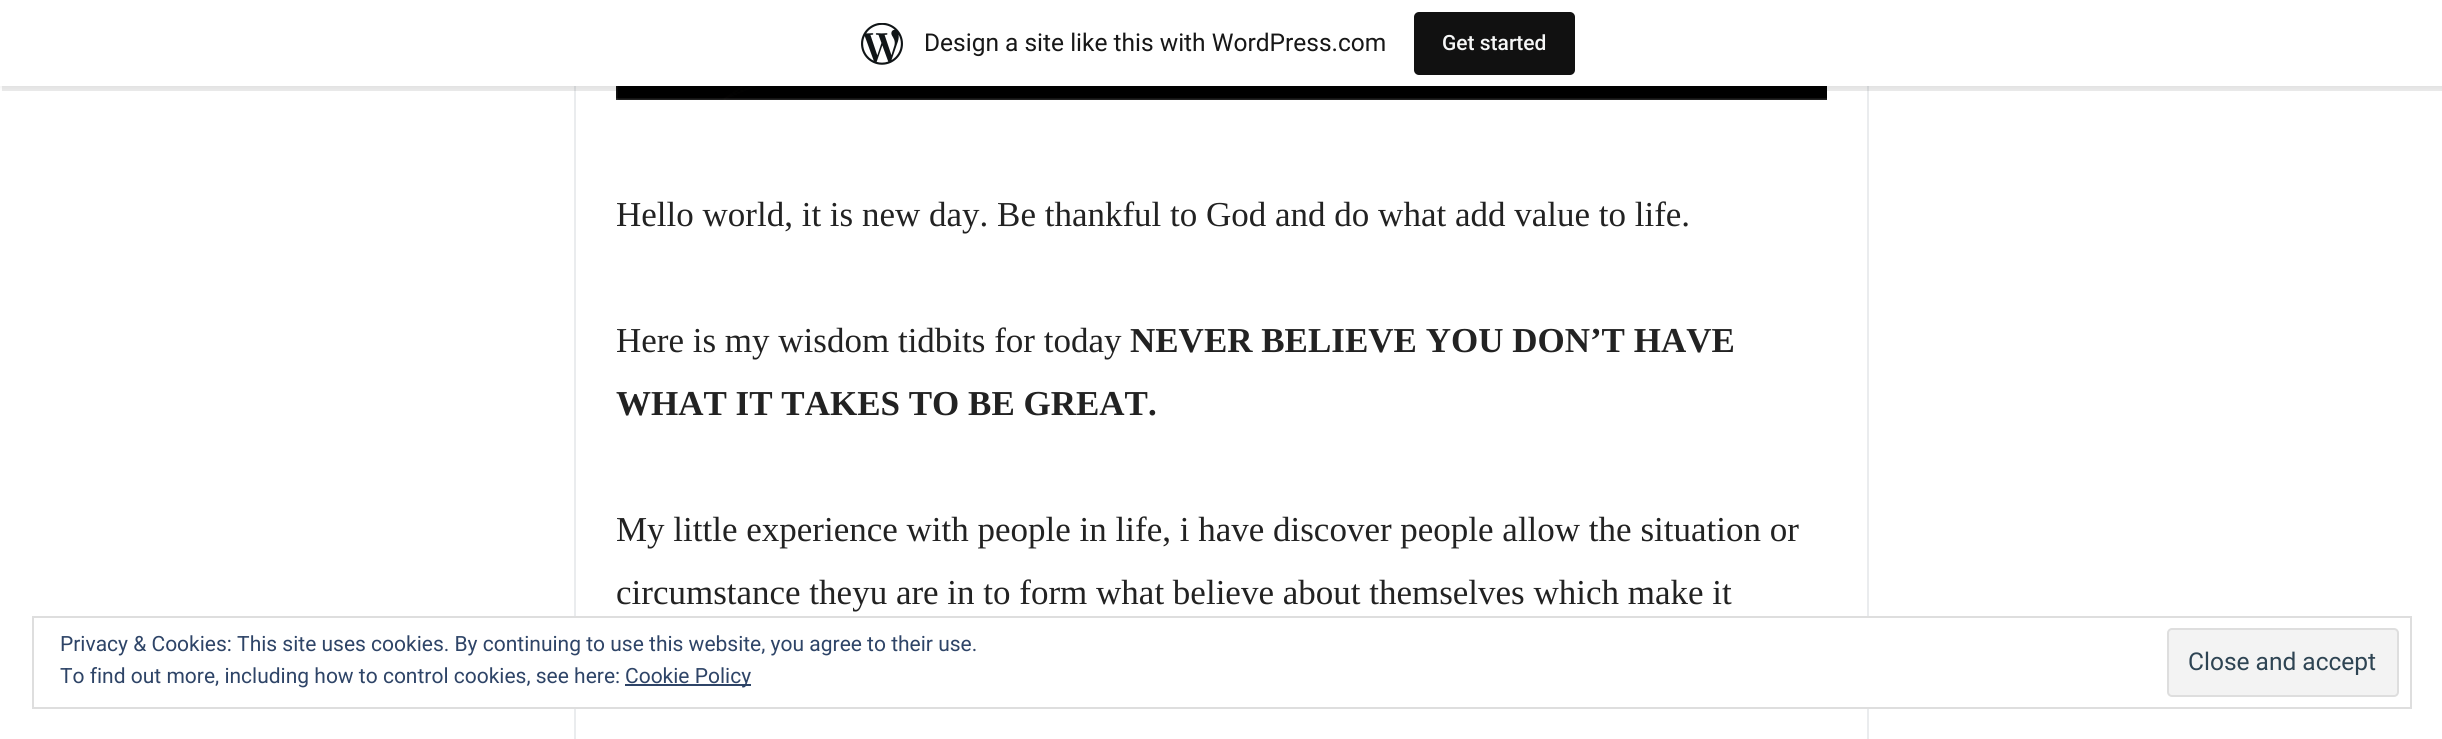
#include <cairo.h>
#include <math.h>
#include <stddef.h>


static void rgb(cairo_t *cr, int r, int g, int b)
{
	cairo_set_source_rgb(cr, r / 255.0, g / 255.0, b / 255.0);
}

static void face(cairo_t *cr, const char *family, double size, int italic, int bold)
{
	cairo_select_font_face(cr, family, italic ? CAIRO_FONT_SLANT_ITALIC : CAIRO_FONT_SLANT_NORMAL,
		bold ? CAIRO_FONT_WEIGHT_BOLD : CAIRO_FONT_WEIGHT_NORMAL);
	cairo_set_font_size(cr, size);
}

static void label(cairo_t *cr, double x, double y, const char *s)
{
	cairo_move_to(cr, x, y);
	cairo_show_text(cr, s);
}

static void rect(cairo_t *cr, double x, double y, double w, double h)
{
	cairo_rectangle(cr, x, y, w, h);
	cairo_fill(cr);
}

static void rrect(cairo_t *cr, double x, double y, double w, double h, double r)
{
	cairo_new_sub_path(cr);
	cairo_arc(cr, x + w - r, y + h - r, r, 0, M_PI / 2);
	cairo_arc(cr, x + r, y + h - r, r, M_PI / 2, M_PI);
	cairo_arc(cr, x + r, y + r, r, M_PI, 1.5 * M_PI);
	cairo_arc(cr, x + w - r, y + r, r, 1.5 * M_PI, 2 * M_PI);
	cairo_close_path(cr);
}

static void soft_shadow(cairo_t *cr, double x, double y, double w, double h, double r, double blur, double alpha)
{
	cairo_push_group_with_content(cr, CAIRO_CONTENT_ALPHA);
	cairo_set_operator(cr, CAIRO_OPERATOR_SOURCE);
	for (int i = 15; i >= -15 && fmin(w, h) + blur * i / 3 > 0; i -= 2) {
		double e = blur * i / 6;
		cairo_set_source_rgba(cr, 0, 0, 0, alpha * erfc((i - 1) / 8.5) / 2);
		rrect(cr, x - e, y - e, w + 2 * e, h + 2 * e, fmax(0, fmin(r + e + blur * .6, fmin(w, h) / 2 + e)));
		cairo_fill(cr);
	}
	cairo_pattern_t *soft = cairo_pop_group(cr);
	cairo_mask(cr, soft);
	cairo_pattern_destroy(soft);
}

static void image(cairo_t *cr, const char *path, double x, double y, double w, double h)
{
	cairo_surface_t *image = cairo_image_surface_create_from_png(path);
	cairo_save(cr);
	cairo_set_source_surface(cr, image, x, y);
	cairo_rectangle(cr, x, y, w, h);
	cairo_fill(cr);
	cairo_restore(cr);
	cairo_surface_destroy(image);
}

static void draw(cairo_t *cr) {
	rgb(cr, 255, 255, 255);
	cairo_paint(cr);
	cairo_rectangle(cr, 575, -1, 1293, 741);
	rgb(cr, 234, 236, 238);
	cairo_stroke(cr);
	image(cr, "image1.png", 616, 86, 1211, 14);
	rgb(cr, 0, 0, 0);
	soft_shadow(cr, 0, 2, 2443, 86, 0, 2, 0.05);
	cairo_set_source_rgba(cr, 0, 0, 0, 0.08);
	cairo_new_path(cr);
	cairo_move_to(cr, 2, 86);
	cairo_line_to(cr, 2, 91);
	cairo_line_to(cr, 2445, 91);
	cairo_line_to(cr, 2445, 5);
	cairo_line_to(cr, 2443, 5);
	cairo_line_to(cr, 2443, 86);
	cairo_close_path(cr);
	cairo_fill(cr);
	rgb(cr, 255, 255, 255);
	rect(cr, 0, 0, 2442, 86);
	image(cr, "image0.png", 861, 23, 42, 42);
	face(cr, "Roboto", 24.5, 0, 0);
	rgb(cr, 23, 23, 23);
	label(cr, 924, 51, "Design a site like this with WordPress.com");
	rgb(cr, 17, 17, 17);
	rrect(cr, 1414, 12, 161, 63, 5);
	cairo_fill(cr);
	face(cr, "Roboto Medium", 21, 0, 0);
	rgb(cr, 246, 247, 247);
	label(cr, 1442, 50, "Get started");
	face(cr, "Liberation Serif", 35, 0, 0);
	rgb(cr, 34, 34, 34);
	label(cr, 616, 226, "Hello world, it is new day. Be thankful to God and do what add value to life.");
	label(cr, 616, 352, "Here is my wisdom tidbits for today");
	face(cr, "Liberation Serif", 35, 0, 1);
	label(cr, 1130, 352, "NEVER BELIEVE YOU DON’T HAVE");
	label(cr, 616, 415, "WHAT IT TAKES TO BE GREAT.");
	face(cr, "Liberation Serif", 35, 0, 0);
	label(cr, 616, 541, "My little experience with people in life, i have discover people allow the situation or");
	label(cr, 616, 604, "circumstance theyu are in to form what believe about themselves which make it");
	rgb(cr, 255, 255, 255);
	rect(cr, 574, 618, 1295, 89);
	cairo_rectangle(cr, 33, 617, 2378, 91);
	rgb(cr, 222, 222, 222);
	cairo_stroke(cr);
	face(cr, "Roboto", 21, 0, 0);
	rgb(cr, 46, 68, 103);
	label(cr, 60, 651, "Privacy & Cookies: This site uses cookies. By continuing to use this website, you agree to their use.");
	rgb(cr, 243, 243, 243);
	rrect(cr, 2168, 629, 230, 67, 4);
	cairo_fill_preserve(cr);
	rgb(cr, 222, 222, 222);
	cairo_stroke(cr);
	face(cr, "Roboto", 24.5, 0, 0);
	rgb(cr, 46, 68, 83);
	label(cr, 2188, 670, "Close and accept");
	face(cr, "Roboto", 21, 0, 0);
	rgb(cr, 46, 68, 103);
	label(cr, 60, 683, "To find out more, including how to control cookies, see here:");
	rect(cr, 625, 684, 126, 2);
	label(cr, 625, 683, "Cookie Policy");
}

int main(void) {
	cairo_surface_t *surface = cairo_image_surface_create(CAIRO_FORMAT_RGB24, 2442, 739);
	cairo_t *cr = cairo_create(surface);
	cairo_font_options_t *options = cairo_font_options_create();
	cairo_font_options_set_hint_metrics(options, CAIRO_HINT_METRICS_OFF);
	cairo_font_options_set_hint_style(options, CAIRO_HINT_STYLE_NONE);
	cairo_set_font_options(cr, options);
	cairo_set_miter_limit(cr, 4);
	draw(cr);
	cairo_surface_write_to_png(surface, "render.png");
	cairo_font_options_destroy(options);
	cairo_destroy(cr);
	cairo_surface_destroy(surface);
	return 0;
}
